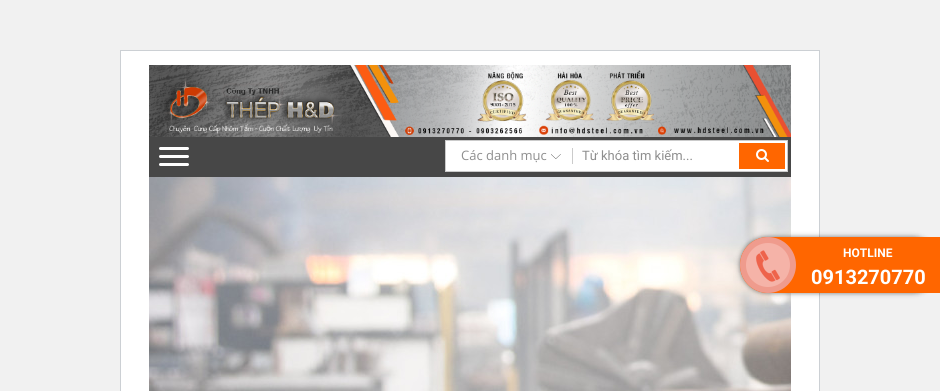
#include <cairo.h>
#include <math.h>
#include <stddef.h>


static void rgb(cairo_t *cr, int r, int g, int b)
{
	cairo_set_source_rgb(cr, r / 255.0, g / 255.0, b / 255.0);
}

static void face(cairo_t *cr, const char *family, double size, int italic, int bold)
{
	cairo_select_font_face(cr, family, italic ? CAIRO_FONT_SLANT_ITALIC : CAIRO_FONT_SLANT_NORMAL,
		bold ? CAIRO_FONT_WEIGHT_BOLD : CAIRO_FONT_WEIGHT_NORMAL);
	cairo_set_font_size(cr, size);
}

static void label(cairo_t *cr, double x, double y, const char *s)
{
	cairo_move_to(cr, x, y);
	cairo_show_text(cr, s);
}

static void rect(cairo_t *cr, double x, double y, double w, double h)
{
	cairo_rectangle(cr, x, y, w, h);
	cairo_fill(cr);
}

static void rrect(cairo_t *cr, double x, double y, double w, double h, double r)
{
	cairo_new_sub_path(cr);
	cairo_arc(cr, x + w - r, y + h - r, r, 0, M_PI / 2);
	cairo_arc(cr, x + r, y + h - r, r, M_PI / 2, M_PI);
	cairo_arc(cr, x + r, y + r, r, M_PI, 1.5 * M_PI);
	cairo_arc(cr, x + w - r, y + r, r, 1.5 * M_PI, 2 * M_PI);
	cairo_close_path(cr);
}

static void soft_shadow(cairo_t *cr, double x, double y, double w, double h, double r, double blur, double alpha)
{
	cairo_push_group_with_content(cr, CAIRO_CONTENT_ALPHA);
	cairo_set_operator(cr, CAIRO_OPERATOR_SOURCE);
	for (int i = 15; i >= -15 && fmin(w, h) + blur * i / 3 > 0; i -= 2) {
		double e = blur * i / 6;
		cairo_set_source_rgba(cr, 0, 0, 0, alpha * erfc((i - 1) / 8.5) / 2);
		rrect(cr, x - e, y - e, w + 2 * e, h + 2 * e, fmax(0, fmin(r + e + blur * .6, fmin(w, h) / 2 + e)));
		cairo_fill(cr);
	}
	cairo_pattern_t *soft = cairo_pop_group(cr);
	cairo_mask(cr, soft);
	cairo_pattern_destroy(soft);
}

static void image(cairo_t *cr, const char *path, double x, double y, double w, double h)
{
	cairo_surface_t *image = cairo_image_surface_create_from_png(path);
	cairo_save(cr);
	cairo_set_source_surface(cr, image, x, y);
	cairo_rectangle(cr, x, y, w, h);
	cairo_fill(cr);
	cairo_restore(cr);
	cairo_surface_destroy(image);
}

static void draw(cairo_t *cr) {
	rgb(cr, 241, 241, 241);
	cairo_paint(cr);
	rgb(cr, 255, 255, 255);
	cairo_rectangle(cr, 120.5, 50.5, 699, 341);
	cairo_fill_preserve(cr);
	rgb(cr, 204, 208, 212);
	cairo_set_line_width(cr, 1);
	cairo_stroke(cr);
	rgb(cr, 71, 71, 71);
	rect(cr, 149, 137, 642, 40);
	rgb(cr, 255, 255, 255);
	rrect(cr, 159, 155, 30, 3, 1.5);
	cairo_fill(cr);
	rrect(cr, 159, 147, 30, 3, 1.5);
	cairo_fill(cr);
	rrect(cr, 159, 163, 30, 3, 1.5);
	cairo_fill(cr);
	image(cr, "image0.png", 149, 65, 642, 72);
	cairo_rectangle(cr, 445.5, 140.5, 342, 31);
	rgb(cr, 203, 203, 203);
	cairo_stroke(cr);
	rgb(cr, 255, 255, 255);
	rect(cr, 446, 141, 341, 30);
	image(cr, "image1.png", 551, 154, 10, 5);
	face(cr, "Open Sans", 13, 0, 0);
	rgb(cr, 142, 142, 142);
	label(cr, 461, 160, "Các danh mục");
	rgb(cr, 203, 203, 203);
	rect(cr, 572, 148, 1, 16);
	face(cr, "Roboto", 13, 0, 0);
	rgb(cr, 142, 142, 142);
	label(cr, 582, 160, "Từ khóa tìm kiếm...");
	rgb(cr, 255, 102, 0);
	rect(cr, 739, 143, 46, 26);
	image(cr, "image2.png", 756, 149, 13, 13);
	image(cr, "image3.png", 149, 177, 642, 214);
	rgb(cr, 0, 0, 0);
	soft_shadow(cr, 740, 237, 200, 56, 28, 2.5, 0.5);
	rgb(cr, 255, 102, 0);
	cairo_new_path(cr);
	cairo_move_to(cr, 768, 237);
	cairo_line_to(cr, 940, 237);
	cairo_line_to(cr, 940, 293);
	cairo_line_to(cr, 768, 293);
	cairo_curve_to(cr, 752.5, 293, 740, 280.5, 740, 265);
	cairo_curve_to(cr, 740, 249.5, 752.5, 237, 768, 237);
	cairo_close_path(cr);
	cairo_fill(cr);
	rgb(cr, 245, 179, 168);
	cairo_arc(cr, 768, 265, 25, 0, 2 * M_PI);
	cairo_fill_preserve(cr);
	rgb(cr, 239, 155, 141);
	cairo_set_line_width(cr, 6);
	cairo_stroke(cr);
	image(cr, "image4.png", 756, 250, 24, 32);
	face(cr, "Roboto", 12, 0, 1);
	rgb(cr, 255, 255, 255);
	label(cr, 843, 257, "HOTLINE");
	face(cr, "Roboto", 20, 0, 1);
	label(cr, 811, 284, "0913270770");
}

int main(void) {
	cairo_surface_t *surface = cairo_image_surface_create(CAIRO_FORMAT_RGB24, 940, 391);
	cairo_t *cr = cairo_create(surface);
	cairo_font_options_t *options = cairo_font_options_create();
	cairo_font_options_set_hint_metrics(options, CAIRO_HINT_METRICS_OFF);
	cairo_font_options_set_hint_style(options, CAIRO_HINT_STYLE_NONE);
	cairo_set_font_options(cr, options);
	cairo_set_miter_limit(cr, 4);
	draw(cr);
	cairo_surface_write_to_png(surface, "render.png");
	cairo_font_options_destroy(options);
	cairo_destroy(cr);
	cairo_surface_destroy(surface);
	return 0;
}
